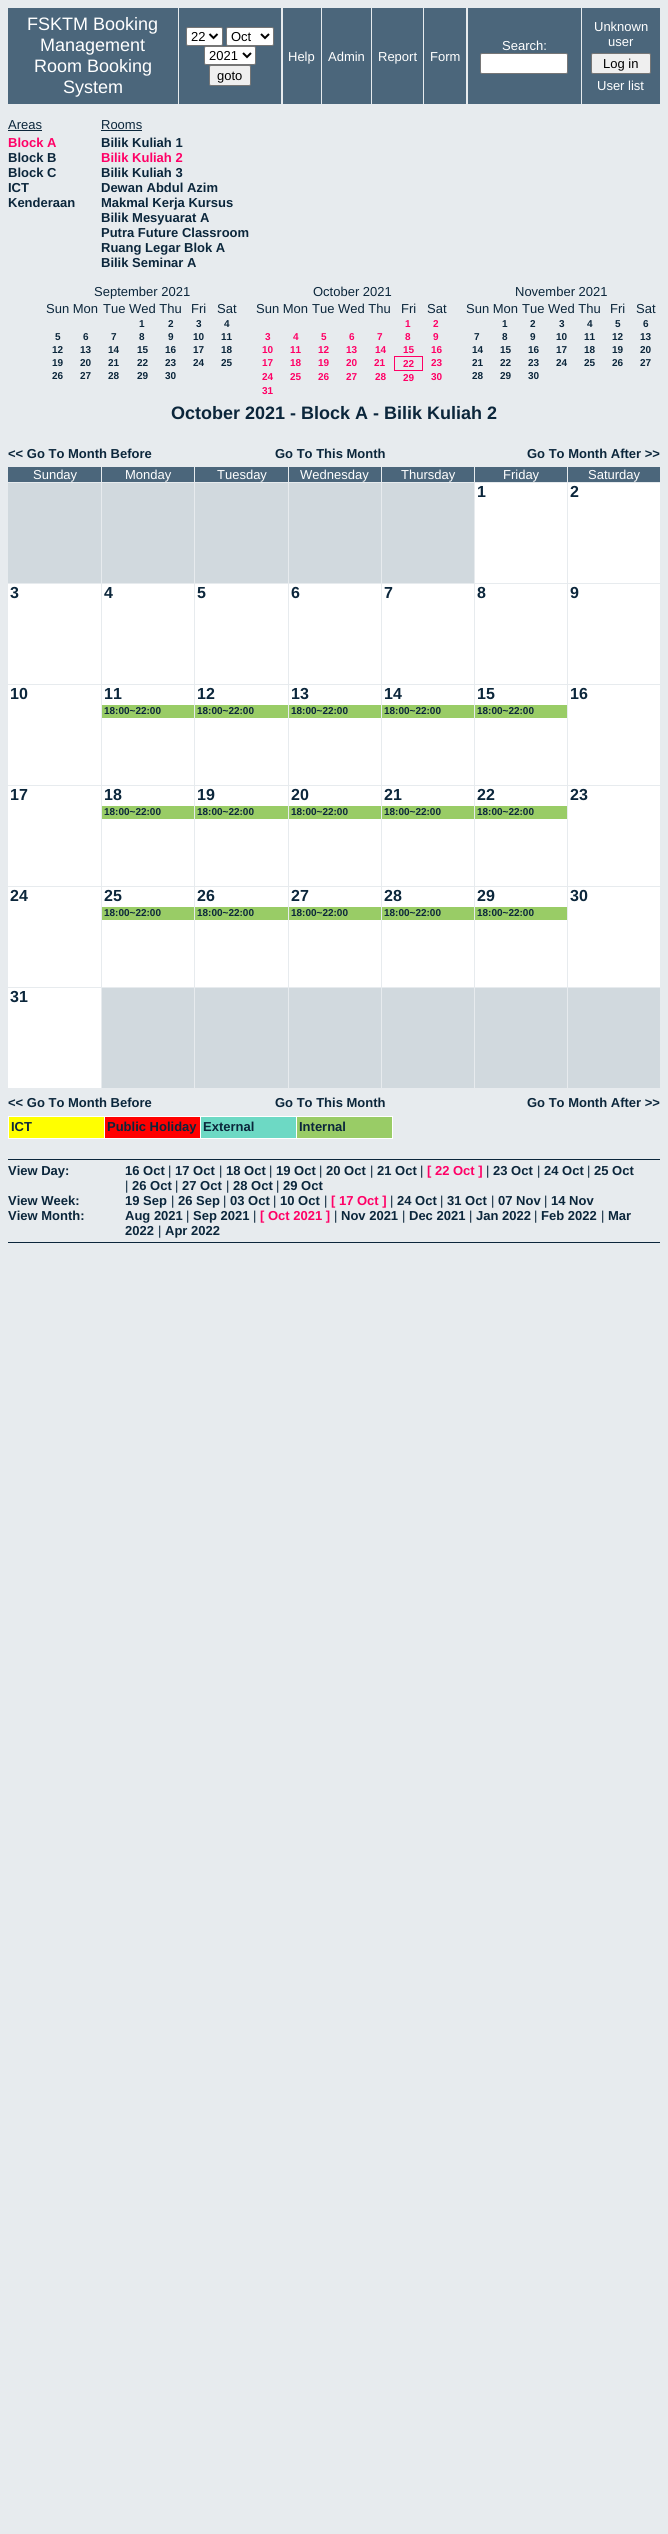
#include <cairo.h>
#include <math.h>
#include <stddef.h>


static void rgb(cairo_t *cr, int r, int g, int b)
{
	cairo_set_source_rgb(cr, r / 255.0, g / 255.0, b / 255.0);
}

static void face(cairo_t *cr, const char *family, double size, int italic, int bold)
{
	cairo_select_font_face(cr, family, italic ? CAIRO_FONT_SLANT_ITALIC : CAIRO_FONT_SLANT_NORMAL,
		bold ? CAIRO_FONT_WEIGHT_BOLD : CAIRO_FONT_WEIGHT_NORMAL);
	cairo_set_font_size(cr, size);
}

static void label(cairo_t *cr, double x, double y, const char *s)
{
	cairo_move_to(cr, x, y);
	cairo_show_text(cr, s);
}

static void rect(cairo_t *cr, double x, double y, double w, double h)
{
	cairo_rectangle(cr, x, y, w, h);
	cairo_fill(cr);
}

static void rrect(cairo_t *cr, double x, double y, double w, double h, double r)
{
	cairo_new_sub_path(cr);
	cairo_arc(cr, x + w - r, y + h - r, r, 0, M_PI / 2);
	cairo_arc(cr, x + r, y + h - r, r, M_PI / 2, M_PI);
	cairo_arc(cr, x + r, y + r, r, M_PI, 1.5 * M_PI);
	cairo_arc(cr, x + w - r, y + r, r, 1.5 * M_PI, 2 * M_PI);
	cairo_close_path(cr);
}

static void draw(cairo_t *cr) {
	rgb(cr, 231, 235, 238);
	cairo_paint(cr);
	rgb(cr, 75, 102, 123);
	rect(cr, 8, 8, 170, 96);
	face(cr, "Liberation Sans", 18, 0, 0);
	rgb(cr, 255, 255, 255);
	label(cr, 27, 30, "FSKTM Booking");
	label(cr, 40, 51, "Management");
	label(cr, 34, 72, "Room Booking");
	label(cr, 63, 93, "System");
	rgb(cr, 75, 102, 123);
	rect(cr, 179, 8, 102, 96);
	rgb(cr, 255, 255, 255);
	rrect(cr, 186.5, 27.5, 36, 18, 1.5);
	cairo_fill_preserve(cr);
	rgb(cr, 118, 118, 118);
	cairo_set_line_width(cr, 1);
	cairo_stroke(cr);
	cairo_new_path(cr);
	cairo_move_to(cr, 209.5, 34);
	cairo_line_to(cr, 213.5, 38);
	cairo_line_to(cr, 217.5, 34);
	rgb(cr, 0, 0, 0);
	cairo_set_line_width(cr, 2);
	cairo_stroke(cr);
	face(cr, "Liberation Sans", 13, 0, 0);
	label(cr, 191, 41, "22");
	rgb(cr, 255, 255, 255);
	rrect(cr, 226.5, 27.5, 47, 18, 1.5);
	cairo_fill_preserve(cr);
	rgb(cr, 118, 118, 118);
	cairo_set_line_width(cr, 1);
	cairo_stroke(cr);
	cairo_new_path(cr);
	cairo_move_to(cr, 261, 34);
	cairo_line_to(cr, 265, 38);
	cairo_line_to(cr, 269, 34);
	rgb(cr, 0, 0, 0);
	cairo_set_line_width(cr, 2);
	cairo_stroke(cr);
	label(cr, 231, 41, "Oct");
	rgb(cr, 255, 255, 255);
	rrect(cr, 204.5, 46.5, 51, 18, 1.5);
	cairo_fill_preserve(cr);
	rgb(cr, 118, 118, 118);
	cairo_set_line_width(cr, 1);
	cairo_stroke(cr);
	cairo_new_path(cr);
	cairo_move_to(cr, 243, 53);
	cairo_line_to(cr, 247, 57);
	cairo_line_to(cr, 251, 53);
	rgb(cr, 0, 0, 0);
	cairo_set_line_width(cr, 2);
	cairo_stroke(cr);
	label(cr, 209, 60, "2021");
	rgb(cr, 239, 239, 239);
	rrect(cr, 209.5, 65.5, 41, 20, 1.5);
	cairo_fill_preserve(cr);
	rgb(cr, 118, 118, 118);
	cairo_set_line_width(cr, 1);
	cairo_stroke(cr);
	rgb(cr, 0, 0, 0);
	label(cr, 217, 80, "goto");
	rgb(cr, 75, 102, 123);
	rect(cr, 468, 8, 113, 96);
	rgb(cr, 255, 255, 255);
	label(cr, 502, 50, "Search:");
	rrect(cr, 480.5, 53.5, 87, 20, 1.5);
	cairo_fill_preserve(cr);
	rgb(cr, 118, 118, 118);
	cairo_stroke(cr);
	rgb(cr, 75, 102, 123);
	rect(cr, 582, 8, 78, 96);
	rgb(cr, 255, 255, 255);
	label(cr, 594, 31, "Unknown");
	label(cr, 608, 46, "user");
	rgb(cr, 239, 239, 239);
	rrect(cr, 591.5, 53.5, 59, 20, 1.5);
	cairo_fill_preserve(cr);
	rgb(cr, 118, 118, 118);
	cairo_stroke(cr);
	rgb(cr, 0, 0, 0);
	label(cr, 603, 68, "Log in");
	rgb(cr, 255, 255, 255);
	label(cr, 597, 90, "User list");
	rgb(cr, 75, 102, 123);
	rect(cr, 283, 8, 38, 96);
	rgb(cr, 255, 255, 255);
	label(cr, 288, 61, "Help");
	rgb(cr, 75, 102, 123);
	rect(cr, 322, 8, 49, 96);
	rgb(cr, 255, 255, 255);
	label(cr, 328, 61, "Admin");
	rgb(cr, 75, 102, 123);
	rect(cr, 372, 8, 51, 96);
	rgb(cr, 255, 255, 255);
	label(cr, 378, 61, "Report");
	rgb(cr, 75, 102, 123);
	rect(cr, 424, 8, 42, 96);
	rgb(cr, 255, 255, 255);
	label(cr, 430, 61, "Form");
	rgb(cr, 11, 38, 59);
	label(cr, 8, 129, "Areas");
	rect(cr, 8, 130, 34, 1);
	face(cr, "Liberation Sans", 13, 0, 1);
	rgb(cr, 255, 0, 102);
	label(cr, 8, 147, "Block A");
	rgb(cr, 11, 38, 59);
	label(cr, 8, 162, "Block B");
	label(cr, 8, 177, "Block C");
	label(cr, 8, 192, "ICT");
	label(cr, 8, 207, "Kenderaan");
	face(cr, "Liberation Sans", 13, 0, 0);
	label(cr, 101, 129, "Rooms");
	rect(cr, 101, 130, 41, 1);
	face(cr, "Liberation Sans", 13, 0, 1);
	label(cr, 101, 147, "Bilik Kuliah 1");
	rgb(cr, 255, 0, 102);
	label(cr, 101, 162, "Bilik Kuliah 2");
	rgb(cr, 11, 38, 59);
	label(cr, 101, 177, "Bilik Kuliah 3");
	label(cr, 101, 192, "Dewan Abdul Azim");
	label(cr, 101, 207, "Makmal Kerja Kursus");
	label(cr, 101, 222, "Bilik Mesyuarat A");
	label(cr, 101, 237, "Putra Future Classroom");
	label(cr, 101, 252, "Ruang Legar Blok A");
	label(cr, 101, 267, "Bilik Seminar A");
	face(cr, "Liberation Sans", 13, 0, 0);
	label(cr, 94, 296, "September 2021");
	label(cr, 46, 313, "Sun Mon");
	label(cr, 103, 313, "Tue Wed Thu");
	label(cr, 191, 313, "Fri");
	label(cr, 217, 313, "Sat");
	face(cr, "Liberation Sans", 10, 0, 1);
	label(cr, 139, 327, "1");
	label(cr, 168, 327, "2");
	label(cr, 196, 327, "3");
	label(cr, 224, 327, "4");
	label(cr, 55, 340, "5");
	label(cr, 83, 340, "6");
	label(cr, 111, 340, "7");
	label(cr, 139, 340, "8");
	label(cr, 168, 340, "9");
	label(cr, 193, 340, "10");
	label(cr, 221, 340, "11");
	label(cr, 52, 353, "12");
	label(cr, 80, 353, "13");
	label(cr, 108, 353, "14");
	label(cr, 137, 353, "15");
	label(cr, 165, 353, "16");
	label(cr, 193, 353, "17");
	label(cr, 221, 353, "18");
	label(cr, 52, 366, "19");
	label(cr, 80, 366, "20");
	label(cr, 108, 366, "21");
	label(cr, 137, 366, "22");
	label(cr, 165, 366, "23");
	label(cr, 193, 366, "24");
	label(cr, 221, 366, "25");
	label(cr, 52, 379, "26");
	label(cr, 80, 379, "27");
	label(cr, 108, 379, "28");
	label(cr, 137, 379, "29");
	label(cr, 165, 379, "30");
	face(cr, "Liberation Sans", 13, 0, 0);
	label(cr, 313, 296, "October 2021");
	label(cr, 256, 313, "Sun Mon");
	label(cr, 312, 313, "Tue Wed Thu");
	label(cr, 401, 313, "Fri");
	label(cr, 427, 313, "Sat");
	face(cr, "Liberation Sans", 10, 0, 1);
	rgb(cr, 255, 0, 102);
	label(cr, 405, 327, "1");
	label(cr, 433, 327, "2");
	label(cr, 265, 340, "3");
	label(cr, 293, 340, "4");
	label(cr, 321, 340, "5");
	label(cr, 349, 340, "6");
	label(cr, 377, 340, "7");
	label(cr, 405, 340, "8");
	label(cr, 433, 340, "9");
	label(cr, 262, 353, "10");
	label(cr, 290, 353, "11");
	label(cr, 318, 353, "12");
	label(cr, 346, 353, "13");
	label(cr, 375, 353, "14");
	label(cr, 403, 353, "15");
	label(cr, 431, 353, "16");
	label(cr, 262, 366, "17");
	label(cr, 290, 366, "18");
	label(cr, 318, 366, "19");
	label(cr, 346, 366, "20");
	label(cr, 374, 366, "21");
	rect(cr, 394, 356, 29, 1);
	rect(cr, 422, 356, 1, 15);
	rect(cr, 394, 370, 29, 1);
	rect(cr, 394, 356, 1, 15);
	label(cr, 403, 367, "22");
	label(cr, 431, 366, "23");
	label(cr, 262, 380, "24");
	label(cr, 290, 380, "25");
	label(cr, 318, 380, "26");
	label(cr, 346, 380, "27");
	label(cr, 375, 380, "28");
	label(cr, 403, 381, "29");
	label(cr, 431, 380, "30");
	label(cr, 262, 394, "31");
	face(cr, "Liberation Sans", 13, 0, 0);
	rgb(cr, 11, 38, 59);
	label(cr, 515, 296, "November 2021");
	label(cr, 466, 313, "Sun Mon");
	label(cr, 522, 313, "Tue Wed Thu");
	label(cr, 610, 313, "Fri");
	label(cr, 636, 313, "Sat");
	face(cr, "Liberation Sans", 10, 0, 1);
	label(cr, 502, 327, "1");
	label(cr, 530, 327, "2");
	label(cr, 559, 327, "3");
	label(cr, 587, 327, "4");
	label(cr, 615, 327, "5");
	label(cr, 643, 327, "6");
	label(cr, 474, 340, "7");
	label(cr, 502, 340, "8");
	label(cr, 530, 340, "9");
	label(cr, 556, 340, "10");
	label(cr, 584, 340, "11");
	label(cr, 612, 340, "12");
	label(cr, 640, 340, "13");
	label(cr, 472, 353, "14");
	label(cr, 500, 353, "15");
	label(cr, 528, 353, "16");
	label(cr, 556, 353, "17");
	label(cr, 584, 353, "18");
	label(cr, 612, 353, "19");
	label(cr, 640, 353, "20");
	label(cr, 472, 366, "21");
	label(cr, 500, 366, "22");
	label(cr, 528, 366, "23");
	label(cr, 556, 366, "24");
	label(cr, 584, 366, "25");
	label(cr, 612, 366, "26");
	label(cr, 640, 366, "27");
	label(cr, 472, 379, "28");
	label(cr, 500, 379, "29");
	label(cr, 528, 379, "30");
	face(cr, "Liberation Sans", 18, 0, 1);
	label(cr, 171, 419, "October 2021 - Block A - Bilik Kuliah 2");
	face(cr, "Liberation Sans", 13, 0, 1);
	label(cr, 8, 458, "<< Go To Month Before");
	label(cr, 275, 458, "Go To This Month");
	label(cr, 527, 458, "Go To Month After >>");
	rgb(cr, 75, 102, 123);
	rect(cr, 8, 467, 93, 15);
	face(cr, "Liberation Sans", 13, 0, 0);
	rgb(cr, 255, 255, 255);
	label(cr, 33, 479, "Sunday");
	rgb(cr, 75, 102, 123);
	rect(cr, 102, 467, 92, 15);
	rgb(cr, 255, 255, 255);
	label(cr, 125, 479, "Monday");
	rgb(cr, 75, 102, 123);
	rect(cr, 195, 467, 93, 15);
	rgb(cr, 255, 255, 255);
	label(cr, 217, 479, "Tuesday");
	rgb(cr, 75, 102, 123);
	rect(cr, 289, 467, 92, 15);
	rgb(cr, 255, 255, 255);
	label(cr, 300, 479, "Wednesday");
	rgb(cr, 75, 102, 123);
	rect(cr, 382, 467, 92, 15);
	rgb(cr, 255, 255, 255);
	label(cr, 401, 479, "Thursday");
	rgb(cr, 75, 102, 123);
	rect(cr, 475, 467, 92, 15);
	rgb(cr, 255, 255, 255);
	label(cr, 503, 479, "Friday");
	rgb(cr, 75, 102, 123);
	rect(cr, 568, 467, 92, 15);
	rgb(cr, 255, 255, 255);
	label(cr, 588, 479, "Saturday");
	rgb(cr, 209, 217, 222);
	rect(cr, 8, 483, 93, 100);
	rect(cr, 102, 483, 92, 100);
	rect(cr, 195, 483, 93, 100);
	rect(cr, 289, 483, 92, 100);
	rect(cr, 382, 483, 92, 100);
	rgb(cr, 255, 255, 255);
	rect(cr, 475, 483, 92, 100);
	face(cr, "Liberation Sans", 16, 0, 1);
	rgb(cr, 11, 38, 59);
	label(cr, 477, 497, "1");
	rgb(cr, 255, 255, 255);
	rect(cr, 568, 483, 92, 100);
	rgb(cr, 11, 38, 59);
	label(cr, 570, 497, "2");
	rgb(cr, 255, 255, 255);
	rect(cr, 8, 584, 93, 100);
	rgb(cr, 11, 38, 59);
	label(cr, 10, 598, "3");
	rgb(cr, 255, 255, 255);
	rect(cr, 102, 584, 92, 100);
	rgb(cr, 11, 38, 59);
	label(cr, 104, 598, "4");
	rgb(cr, 255, 255, 255);
	rect(cr, 195, 584, 93, 100);
	rgb(cr, 11, 38, 59);
	label(cr, 197, 598, "5");
	rgb(cr, 255, 255, 255);
	rect(cr, 289, 584, 92, 100);
	rgb(cr, 11, 38, 59);
	label(cr, 291, 598, "6");
	rgb(cr, 255, 255, 255);
	rect(cr, 382, 584, 92, 100);
	rgb(cr, 11, 38, 59);
	label(cr, 384, 598, "7");
	rgb(cr, 255, 255, 255);
	rect(cr, 475, 584, 92, 100);
	rgb(cr, 11, 38, 59);
	label(cr, 477, 598, "8");
	rgb(cr, 255, 255, 255);
	rect(cr, 568, 584, 92, 100);
	rgb(cr, 11, 38, 59);
	label(cr, 570, 598, "9");
	rgb(cr, 255, 255, 255);
	rect(cr, 8, 685, 93, 100);
	rgb(cr, 11, 38, 59);
	label(cr, 10, 699, "10");
	rgb(cr, 255, 255, 255);
	rect(cr, 102, 685, 92, 100);
	rgb(cr, 11, 38, 59);
	label(cr, 104, 699, "11");
	rgb(cr, 153, 204, 102);
	rect(cr, 102, 705, 92, 13);
	face(cr, "Liberation Sans", 10, 0, 1);
	rgb(cr, 11, 38, 59);
	label(cr, 104, 714, "18:00~22:00");
	rgb(cr, 255, 255, 255);
	rect(cr, 195, 685, 93, 100);
	face(cr, "Liberation Sans", 16, 0, 1);
	rgb(cr, 11, 38, 59);
	label(cr, 197, 699, "12");
	rgb(cr, 153, 204, 102);
	rect(cr, 195, 705, 93, 13);
	face(cr, "Liberation Sans", 10, 0, 1);
	rgb(cr, 11, 38, 59);
	label(cr, 197, 714, "18:00~22:00");
	rgb(cr, 255, 255, 255);
	rect(cr, 289, 685, 92, 100);
	face(cr, "Liberation Sans", 16, 0, 1);
	rgb(cr, 11, 38, 59);
	label(cr, 291, 699, "13");
	rgb(cr, 153, 204, 102);
	rect(cr, 289, 705, 92, 13);
	face(cr, "Liberation Sans", 10, 0, 1);
	rgb(cr, 11, 38, 59);
	label(cr, 291, 714, "18:00~22:00");
	rgb(cr, 255, 255, 255);
	rect(cr, 382, 685, 92, 100);
	face(cr, "Liberation Sans", 16, 0, 1);
	rgb(cr, 11, 38, 59);
	label(cr, 384, 699, "14");
	rgb(cr, 153, 204, 102);
	rect(cr, 382, 705, 92, 13);
	face(cr, "Liberation Sans", 10, 0, 1);
	rgb(cr, 11, 38, 59);
	label(cr, 384, 714, "18:00~22:00");
	rgb(cr, 255, 255, 255);
	rect(cr, 475, 685, 92, 100);
	face(cr, "Liberation Sans", 16, 0, 1);
	rgb(cr, 11, 38, 59);
	label(cr, 477, 699, "15");
	rgb(cr, 153, 204, 102);
	rect(cr, 475, 705, 92, 13);
	face(cr, "Liberation Sans", 10, 0, 1);
	rgb(cr, 11, 38, 59);
	label(cr, 477, 714, "18:00~22:00");
	rgb(cr, 255, 255, 255);
	rect(cr, 568, 685, 92, 100);
	face(cr, "Liberation Sans", 16, 0, 1);
	rgb(cr, 11, 38, 59);
	label(cr, 570, 699, "16");
	rgb(cr, 255, 255, 255);
	rect(cr, 8, 786, 93, 100);
	rgb(cr, 11, 38, 59);
	label(cr, 10, 800, "17");
	rgb(cr, 255, 255, 255);
	rect(cr, 102, 786, 92, 100);
	rgb(cr, 11, 38, 59);
	label(cr, 104, 800, "18");
	rgb(cr, 153, 204, 102);
	rect(cr, 102, 806, 92, 13);
	face(cr, "Liberation Sans", 10, 0, 1);
	rgb(cr, 11, 38, 59);
	label(cr, 104, 815, "18:00~22:00");
	rgb(cr, 255, 255, 255);
	rect(cr, 195, 786, 93, 100);
	face(cr, "Liberation Sans", 16, 0, 1);
	rgb(cr, 11, 38, 59);
	label(cr, 197, 800, "19");
	rgb(cr, 153, 204, 102);
	rect(cr, 195, 806, 93, 13);
	face(cr, "Liberation Sans", 10, 0, 1);
	rgb(cr, 11, 38, 59);
	label(cr, 197, 815, "18:00~22:00");
	rgb(cr, 255, 255, 255);
	rect(cr, 289, 786, 92, 100);
	face(cr, "Liberation Sans", 16, 0, 1);
	rgb(cr, 11, 38, 59);
	label(cr, 291, 800, "20");
	rgb(cr, 153, 204, 102);
	rect(cr, 289, 806, 92, 13);
	face(cr, "Liberation Sans", 10, 0, 1);
	rgb(cr, 11, 38, 59);
	label(cr, 291, 815, "18:00~22:00");
	rgb(cr, 255, 255, 255);
	rect(cr, 382, 786, 92, 100);
	face(cr, "Liberation Sans", 16, 0, 1);
	rgb(cr, 11, 38, 59);
	label(cr, 384, 800, "21");
	rgb(cr, 153, 204, 102);
	rect(cr, 382, 806, 92, 13);
	face(cr, "Liberation Sans", 10, 0, 1);
	rgb(cr, 11, 38, 59);
	label(cr, 384, 815, "18:00~22:00");
	rgb(cr, 255, 255, 255);
	rect(cr, 475, 786, 92, 100);
	face(cr, "Liberation Sans", 16, 0, 1);
	rgb(cr, 11, 38, 59);
	label(cr, 477, 800, "22");
	rgb(cr, 153, 204, 102);
	rect(cr, 475, 806, 92, 13);
	face(cr, "Liberation Sans", 10, 0, 1);
	rgb(cr, 11, 38, 59);
	label(cr, 477, 815, "18:00~22:00");
	rgb(cr, 255, 255, 255);
	rect(cr, 568, 786, 92, 100);
	face(cr, "Liberation Sans", 16, 0, 1);
	rgb(cr, 11, 38, 59);
	label(cr, 570, 800, "23");
	rgb(cr, 255, 255, 255);
	rect(cr, 8, 887, 93, 100);
	rgb(cr, 11, 38, 59);
	label(cr, 10, 901, "24");
	rgb(cr, 255, 255, 255);
	rect(cr, 102, 887, 92, 100);
	rgb(cr, 11, 38, 59);
	label(cr, 104, 901, "25");
	rgb(cr, 153, 204, 102);
	rect(cr, 102, 907, 92, 13);
	face(cr, "Liberation Sans", 10, 0, 1);
	rgb(cr, 11, 38, 59);
	label(cr, 104, 916, "18:00~22:00");
	rgb(cr, 255, 255, 255);
	rect(cr, 195, 887, 93, 100);
	face(cr, "Liberation Sans", 16, 0, 1);
	rgb(cr, 11, 38, 59);
	label(cr, 197, 901, "26");
	rgb(cr, 153, 204, 102);
	rect(cr, 195, 907, 93, 13);
	face(cr, "Liberation Sans", 10, 0, 1);
	rgb(cr, 11, 38, 59);
	label(cr, 197, 916, "18:00~22:00");
	rgb(cr, 255, 255, 255);
	rect(cr, 289, 887, 92, 100);
	face(cr, "Liberation Sans", 16, 0, 1);
	rgb(cr, 11, 38, 59);
	label(cr, 291, 901, "27");
	rgb(cr, 153, 204, 102);
	rect(cr, 289, 907, 92, 13);
	face(cr, "Liberation Sans", 10, 0, 1);
	rgb(cr, 11, 38, 59);
	label(cr, 291, 916, "18:00~22:00");
	rgb(cr, 255, 255, 255);
	rect(cr, 382, 887, 92, 100);
	face(cr, "Liberation Sans", 16, 0, 1);
	rgb(cr, 11, 38, 59);
	label(cr, 384, 901, "28");
	rgb(cr, 153, 204, 102);
	rect(cr, 382, 907, 92, 13);
	face(cr, "Liberation Sans", 10, 0, 1);
	rgb(cr, 11, 38, 59);
	label(cr, 384, 916, "18:00~22:00");
	rgb(cr, 255, 255, 255);
	rect(cr, 475, 887, 92, 100);
	face(cr, "Liberation Sans", 16, 0, 1);
	rgb(cr, 11, 38, 59);
	label(cr, 477, 901, "29");
	rgb(cr, 153, 204, 102);
	rect(cr, 475, 907, 92, 13);
	face(cr, "Liberation Sans", 10, 0, 1);
	rgb(cr, 11, 38, 59);
	label(cr, 477, 916, "18:00~22:00");
	rgb(cr, 255, 255, 255);
	rect(cr, 568, 887, 92, 100);
	face(cr, "Liberation Sans", 16, 0, 1);
	rgb(cr, 11, 38, 59);
	label(cr, 570, 901, "30");
	rgb(cr, 255, 255, 255);
	rect(cr, 8, 988, 93, 100);
	rgb(cr, 11, 38, 59);
	label(cr, 10, 1002, "31");
	rgb(cr, 209, 217, 222);
	rect(cr, 102, 988, 92, 100);
	rect(cr, 195, 988, 93, 100);
	rect(cr, 289, 988, 92, 100);
	rect(cr, 382, 988, 92, 100);
	rect(cr, 475, 988, 92, 100);
	rect(cr, 568, 988, 92, 100);
	face(cr, "Liberation Sans", 13, 0, 1);
	rgb(cr, 11, 38, 59);
	label(cr, 8, 1107, "<< Go To Month Before");
	label(cr, 275, 1107, "Go To This Month");
	label(cr, 527, 1107, "Go To Month After >>");
	rgb(cr, 255, 255, 0);
	rect(cr, 9, 1117, 95, 21);
	rgb(cr, 255, 255, 255);
	rect(cr, 296, 1116, 97, 1);
	rect(cr, 392, 1116, 1, 23);
	rect(cr, 296, 1138, 97, 1);
	rect(cr, 296, 1116, 1, 23);
	rect(cr, 200, 1116, 97, 1);
	rect(cr, 200, 1138, 97, 1);
	rect(cr, 200, 1116, 1, 23);
	rect(cr, 104, 1116, 97, 1);
	rect(cr, 104, 1138, 97, 1);
	rect(cr, 104, 1116, 1, 23);
	rect(cr, 8, 1116, 97, 1);
	rect(cr, 8, 1138, 97, 1);
	rect(cr, 8, 1116, 1, 23);
	rgb(cr, 11, 38, 59);
	label(cr, 11, 1131, "ICT");
	rgb(cr, 255, 0, 0);
	rect(cr, 105, 1117, 95, 21);
	rgb(cr, 11, 38, 59);
	label(cr, 107, 1131, "Public Holiday");
	rgb(cr, 109, 217, 196);
	rect(cr, 201, 1117, 95, 21);
	rgb(cr, 11, 38, 59);
	label(cr, 203, 1131, "External");
	rgb(cr, 153, 204, 102);
	rect(cr, 297, 1117, 95, 21);
	rgb(cr, 11, 38, 59);
	label(cr, 299, 1131, "Internal");
	rect(cr, 8, 1159, 652, 1);
	rect(cr, 8, 1242, 652, 1);
	label(cr, 8, 1175, "View Day:");
	label(cr, 125, 1175, "16 Oct");
	face(cr, "Liberation Sans", 13, 0, 0);
	label(cr, 168, 1175, "|");
	face(cr, "Liberation Sans", 13, 0, 1);
	label(cr, 175, 1175, "17 Oct");
	face(cr, "Liberation Sans", 13, 0, 0);
	label(cr, 219, 1175, "|");
	face(cr, "Liberation Sans", 13, 0, 1);
	label(cr, 226, 1175, "18 Oct");
	face(cr, "Liberation Sans", 13, 0, 0);
	label(cr, 269, 1175, "|");
	face(cr, "Liberation Sans", 13, 0, 1);
	label(cr, 276, 1175, "19 Oct");
	face(cr, "Liberation Sans", 13, 0, 0);
	label(cr, 319, 1175, "|");
	face(cr, "Liberation Sans", 13, 0, 1);
	label(cr, 326, 1175, "20 Oct");
	face(cr, "Liberation Sans", 13, 0, 0);
	label(cr, 370, 1175, "|");
	face(cr, "Liberation Sans", 13, 0, 1);
	label(cr, 377, 1175, "21 Oct");
	face(cr, "Liberation Sans", 13, 0, 0);
	label(cr, 420, 1175, "|");
	face(cr, "Liberation Sans", 13, 0, 1);
	rgb(cr, 255, 0, 102);
	label(cr, 427, 1175, "[ 22 Oct ]");
	face(cr, "Liberation Sans", 13, 0, 0);
	rgb(cr, 11, 38, 59);
	label(cr, 486, 1175, "|");
	face(cr, "Liberation Sans", 13, 0, 1);
	label(cr, 493, 1175, "23 Oct");
	face(cr, "Liberation Sans", 13, 0, 0);
	label(cr, 537, 1175, "|");
	face(cr, "Liberation Sans", 13, 0, 1);
	label(cr, 544, 1175, "24 Oct");
	face(cr, "Liberation Sans", 13, 0, 0);
	label(cr, 587, 1175, "|");
	face(cr, "Liberation Sans", 13, 0, 1);
	label(cr, 594, 1175, "25 Oct");
	face(cr, "Liberation Sans", 13, 0, 0);
	label(cr, 125, 1190, "|");
	face(cr, "Liberation Sans", 13, 0, 1);
	label(cr, 132, 1190, "26 Oct");
	face(cr, "Liberation Sans", 13, 0, 0);
	label(cr, 175, 1190, "|");
	face(cr, "Liberation Sans", 13, 0, 1);
	label(cr, 182, 1190, "27 Oct");
	face(cr, "Liberation Sans", 13, 0, 0);
	label(cr, 226, 1190, "|");
	face(cr, "Liberation Sans", 13, 0, 1);
	label(cr, 233, 1190, "28 Oct");
	face(cr, "Liberation Sans", 13, 0, 0);
	label(cr, 276, 1190, "|");
	face(cr, "Liberation Sans", 13, 0, 1);
	label(cr, 283, 1190, "29 Oct");
	label(cr, 8, 1205, "View Week:");
	label(cr, 125, 1205, "19 Sep");
	face(cr, "Liberation Sans", 13, 0, 0);
	label(cr, 171, 1205, "|");
	face(cr, "Liberation Sans", 13, 0, 1);
	label(cr, 178, 1205, "26 Sep");
	face(cr, "Liberation Sans", 13, 0, 0);
	label(cr, 223, 1205, "|");
	face(cr, "Liberation Sans", 13, 0, 1);
	label(cr, 230, 1205, "03 Oct");
	face(cr, "Liberation Sans", 13, 0, 0);
	label(cr, 273, 1205, "|");
	face(cr, "Liberation Sans", 13, 0, 1);
	label(cr, 280, 1205, "10 Oct");
	face(cr, "Liberation Sans", 13, 0, 0);
	label(cr, 324, 1205, "|");
	face(cr, "Liberation Sans", 13, 0, 1);
	rgb(cr, 255, 0, 102);
	label(cr, 331, 1205, "[ 17 Oct ]");
	face(cr, "Liberation Sans", 13, 0, 0);
	rgb(cr, 11, 38, 59);
	label(cr, 390, 1205, "|");
	face(cr, "Liberation Sans", 13, 0, 1);
	label(cr, 397, 1205, "24 Oct");
	face(cr, "Liberation Sans", 13, 0, 0);
	label(cr, 440, 1205, "|");
	face(cr, "Liberation Sans", 13, 0, 1);
	label(cr, 447, 1205, "31 Oct");
	face(cr, "Liberation Sans", 13, 0, 0);
	label(cr, 491, 1205, "|");
	face(cr, "Liberation Sans", 13, 0, 1);
	label(cr, 498, 1205, "07 Nov");
	face(cr, "Liberation Sans", 13, 0, 0);
	label(cr, 544, 1205, "|");
	face(cr, "Liberation Sans", 13, 0, 1);
	label(cr, 551, 1205, "14 Nov");
	label(cr, 8, 1220, "View Month:");
	label(cr, 125, 1220, "Aug 2021");
	face(cr, "Liberation Sans", 13, 0, 0);
	label(cr, 186, 1220, "|");
	face(cr, "Liberation Sans", 13, 0, 1);
	label(cr, 193, 1220, "Sep 2021");
	face(cr, "Liberation Sans", 13, 0, 0);
	label(cr, 253, 1220, "|");
	face(cr, "Liberation Sans", 13, 0, 1);
	rgb(cr, 255, 0, 102);
	label(cr, 260, 1220, "[ Oct 2021 ]");
	face(cr, "Liberation Sans", 13, 0, 0);
	rgb(cr, 11, 38, 59);
	label(cr, 334, 1220, "|");
	face(cr, "Liberation Sans", 13, 0, 1);
	label(cr, 341, 1220, "Nov 2021");
	face(cr, "Liberation Sans", 13, 0, 0);
	label(cr, 402, 1220, "|");
	face(cr, "Liberation Sans", 13, 0, 1);
	label(cr, 409, 1220, "Dec 2021");
	face(cr, "Liberation Sans", 13, 0, 0);
	label(cr, 469, 1220, "|");
	face(cr, "Liberation Sans", 13, 0, 1);
	label(cr, 476, 1220, "Jan 2022");
	face(cr, "Liberation Sans", 13, 0, 0);
	label(cr, 534, 1220, "|");
	face(cr, "Liberation Sans", 13, 0, 1);
	label(cr, 541, 1220, "Feb 2022");
	face(cr, "Liberation Sans", 13, 0, 0);
	label(cr, 601, 1220, "|");
	face(cr, "Liberation Sans", 13, 0, 1);
	label(cr, 608, 1220, "Mar");
	label(cr, 125, 1235, "2022");
	face(cr, "Liberation Sans", 13, 0, 0);
	label(cr, 158, 1235, "|");
	face(cr, "Liberation Sans", 13, 0, 1);
	label(cr, 165, 1235, "Apr 2022");
}

int main(void) {
	cairo_surface_t *surface = cairo_image_surface_create(CAIRO_FORMAT_RGB24, 668, 2534);
	cairo_t *cr = cairo_create(surface);
	cairo_font_options_t *options = cairo_font_options_create();
	cairo_font_options_set_hint_metrics(options, CAIRO_HINT_METRICS_OFF);
	cairo_font_options_set_hint_style(options, CAIRO_HINT_STYLE_NONE);
	cairo_set_font_options(cr, options);
	cairo_set_miter_limit(cr, 4);
	draw(cr);
	cairo_surface_write_to_png(surface, "render.png");
	cairo_font_options_destroy(options);
	cairo_destroy(cr);
	cairo_surface_destroy(surface);
	return 0;
}
